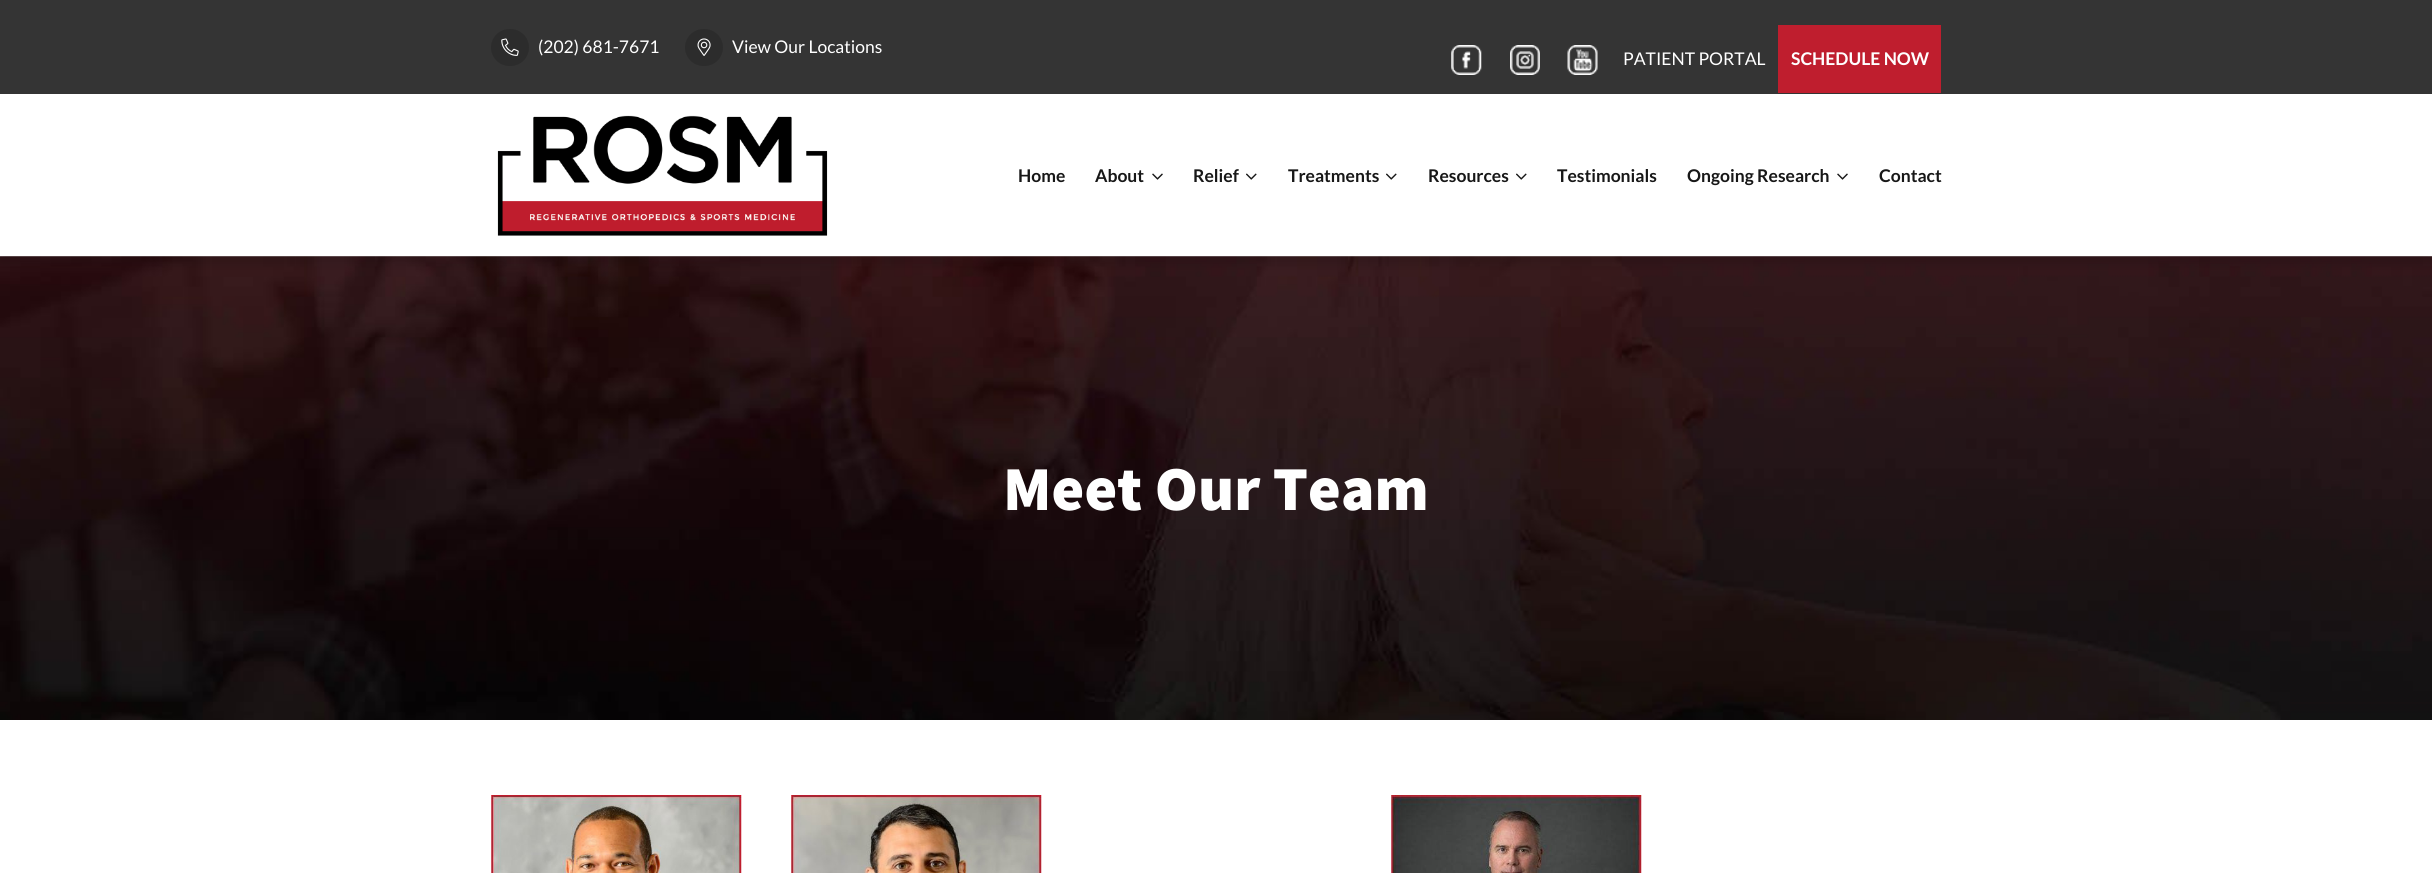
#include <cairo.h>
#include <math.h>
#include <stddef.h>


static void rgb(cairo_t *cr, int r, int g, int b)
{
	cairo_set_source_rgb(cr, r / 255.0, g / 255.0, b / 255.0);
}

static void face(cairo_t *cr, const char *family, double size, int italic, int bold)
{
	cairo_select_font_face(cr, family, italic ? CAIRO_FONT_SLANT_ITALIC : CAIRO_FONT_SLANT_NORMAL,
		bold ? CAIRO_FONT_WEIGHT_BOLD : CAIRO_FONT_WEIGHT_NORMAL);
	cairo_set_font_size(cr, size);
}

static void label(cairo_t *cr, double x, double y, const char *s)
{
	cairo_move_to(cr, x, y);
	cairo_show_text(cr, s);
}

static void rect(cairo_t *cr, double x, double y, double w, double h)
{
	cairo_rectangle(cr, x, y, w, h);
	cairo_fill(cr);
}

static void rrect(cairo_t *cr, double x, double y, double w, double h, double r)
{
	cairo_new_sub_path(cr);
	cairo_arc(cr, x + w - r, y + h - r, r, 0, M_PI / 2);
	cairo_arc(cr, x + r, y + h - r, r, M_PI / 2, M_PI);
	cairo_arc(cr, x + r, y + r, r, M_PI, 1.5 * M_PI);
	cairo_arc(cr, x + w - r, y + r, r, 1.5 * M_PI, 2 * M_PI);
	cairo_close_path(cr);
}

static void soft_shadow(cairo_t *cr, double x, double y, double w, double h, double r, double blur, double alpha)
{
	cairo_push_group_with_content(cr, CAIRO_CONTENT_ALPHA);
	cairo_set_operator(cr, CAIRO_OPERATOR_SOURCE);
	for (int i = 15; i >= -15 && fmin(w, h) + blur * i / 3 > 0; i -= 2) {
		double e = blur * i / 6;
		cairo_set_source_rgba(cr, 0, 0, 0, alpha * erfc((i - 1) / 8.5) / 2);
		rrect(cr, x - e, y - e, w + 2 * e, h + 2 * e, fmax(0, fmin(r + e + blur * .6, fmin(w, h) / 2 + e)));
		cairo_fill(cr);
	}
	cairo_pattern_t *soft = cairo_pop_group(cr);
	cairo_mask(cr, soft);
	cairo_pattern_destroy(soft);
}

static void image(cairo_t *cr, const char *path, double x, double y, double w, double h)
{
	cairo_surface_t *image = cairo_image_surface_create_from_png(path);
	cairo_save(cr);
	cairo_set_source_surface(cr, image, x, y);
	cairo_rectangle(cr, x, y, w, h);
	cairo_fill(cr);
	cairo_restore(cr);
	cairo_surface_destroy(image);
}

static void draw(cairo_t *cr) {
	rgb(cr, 255, 255, 255);
	cairo_paint(cr);
	rgb(cr, 52, 52, 52);
	rect(cr, 0, 0, 2432, 94);
	rgb(cr, 44, 44, 44);
	rrect(cr, 491, 29, 38, 37, 18.5);
	cairo_fill(cr);
	image(cr, "image0.png", 501, 38, 18, 18);
	face(cr, "Lato", 17.5, 0, 0);
	rgb(cr, 255, 255, 255);
	label(cr, 538, 53, "(202) 681-7671");
	rgb(cr, 44, 44, 44);
	rrect(cr, 685, 29, 38, 37, 18.5);
	cairo_fill(cr);
	image(cr, "image1.png", 697, 38, 14, 18);
	rgb(cr, 255, 255, 255);
	label(cr, 732, 53, "View Our Locations");
	image(cr, "image2.png", 1451, 45, 31, 30);
	image(cr, "image3.png", 1510, 45, 30, 30);
	image(cr, "image4.png", 1567, 45, 31, 30);
	label(cr, 1623, 65, "PATIENT PORTAL");
	rgb(cr, 191, 30, 46);
	rect(cr, 1778, 25, 163, 68);
	face(cr, "Lato", 17.5, 0, 1);
	rgb(cr, 255, 255, 255);
	label(cr, 1791, 65, "SCHEDULE NOW");
	image(cr, "image8.png", 0, 256, 2432, 464);
	cairo_save(cr);
	cairo_rectangle(cr, 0, 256, 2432, 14);
	cairo_clip(cr);
	rgb(cr, 0, 0, 0);
	soft_shadow(cr, 0, 100, 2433, 163, 0, 6, 0.15);
	cairo_restore(cr);
	image(cr, "image5.png", 497, 115, 331, 121);
	rgb(cr, 23, 23, 23);
	label(cr, 1018, 182, "Home");
	label(cr, 1095, 182, "About");
	image(cr, "image6.png", 1152, 173, 11, 7);
	label(cr, 1193, 182, "Relief");
	image(cr, "image7.png", 1246, 173, 11, 7);
	label(cr, 1288, 182, "Treatments");
	image(cr, "image7.png", 1386, 173, 11, 7);
	label(cr, 1428, 182, "Resources");
	image(cr, "image7.png", 1516, 173, 11, 7);
	label(cr, 1557, 182, "Testimonials");
	label(cr, 1687, 182, "Ongoing Research");
	image(cr, "image6.png", 1837, 173, 11, 7);
	label(cr, 1879, 182, "Contact");
	face(cr, "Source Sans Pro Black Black", 62.5, 0, 0);
	rgb(cr, 255, 255, 255);
	label(cr, 1003, 510, "Meet Our Team");
	image(cr, "image9.png", 491, 795, 251, 78);
	image(cr, "image10.png", 791, 795, 251, 78);
	image(cr, "image11.png", 1391, 795, 251, 78);
}

int main(void) {
	cairo_surface_t *surface = cairo_image_surface_create(CAIRO_FORMAT_RGB24, 2432, 873);
	cairo_t *cr = cairo_create(surface);
	cairo_font_options_t *options = cairo_font_options_create();
	cairo_font_options_set_hint_metrics(options, CAIRO_HINT_METRICS_OFF);
	cairo_font_options_set_hint_style(options, CAIRO_HINT_STYLE_NONE);
	cairo_set_font_options(cr, options);
	cairo_set_miter_limit(cr, 4);
	draw(cr);
	cairo_surface_write_to_png(surface, "render.png");
	cairo_font_options_destroy(options);
	cairo_destroy(cr);
	cairo_surface_destroy(surface);
	return 0;
}
